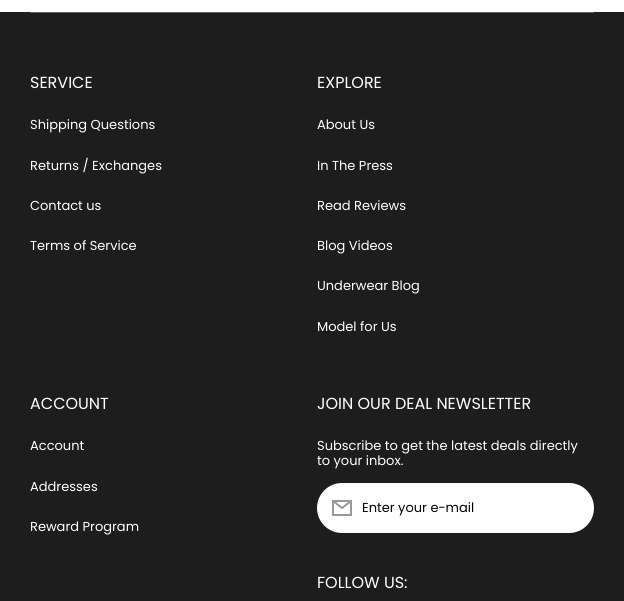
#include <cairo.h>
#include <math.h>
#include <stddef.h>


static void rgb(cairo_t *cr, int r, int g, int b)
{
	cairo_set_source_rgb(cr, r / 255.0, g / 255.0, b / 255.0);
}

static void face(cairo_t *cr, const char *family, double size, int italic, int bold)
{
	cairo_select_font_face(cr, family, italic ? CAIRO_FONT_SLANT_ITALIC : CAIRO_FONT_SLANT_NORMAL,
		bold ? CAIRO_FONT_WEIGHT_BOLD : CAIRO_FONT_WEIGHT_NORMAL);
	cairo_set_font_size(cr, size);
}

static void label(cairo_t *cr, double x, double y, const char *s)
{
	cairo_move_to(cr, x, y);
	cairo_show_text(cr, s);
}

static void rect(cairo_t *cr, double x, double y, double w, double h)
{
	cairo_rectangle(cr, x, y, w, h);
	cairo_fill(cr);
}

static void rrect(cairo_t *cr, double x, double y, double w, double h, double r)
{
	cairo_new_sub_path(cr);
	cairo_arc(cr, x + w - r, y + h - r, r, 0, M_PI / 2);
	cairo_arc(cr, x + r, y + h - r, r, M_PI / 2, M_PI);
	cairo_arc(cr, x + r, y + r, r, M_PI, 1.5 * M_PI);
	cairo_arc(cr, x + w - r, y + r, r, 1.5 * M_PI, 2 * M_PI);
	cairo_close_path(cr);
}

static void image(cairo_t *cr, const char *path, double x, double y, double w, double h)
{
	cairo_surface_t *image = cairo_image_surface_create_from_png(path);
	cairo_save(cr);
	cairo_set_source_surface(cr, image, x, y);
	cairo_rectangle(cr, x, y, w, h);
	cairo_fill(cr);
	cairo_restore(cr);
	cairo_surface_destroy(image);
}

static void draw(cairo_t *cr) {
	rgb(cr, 255, 255, 255);
	cairo_paint(cr);
	rgb(cr, 29, 29, 29);
	rect(cr, 0, 12, 624, 589);
	rgb(cr, 97, 97, 97);
	rect(cr, 30, 12, 564, 1);
	face(cr, "Poppins", 16, 0, 0);
	rgb(cr, 255, 255, 255);
	label(cr, 30, 88, "SERVICE");
	face(cr, "Poppins", 13, 0, 0);
	label(cr, 30, 129, "Shipping Questions");
	label(cr, 30, 170, "Returns / Exchanges");
	label(cr, 30, 210, "Contact us");
	label(cr, 30, 250, "Terms of Service");
	face(cr, "Poppins", 16, 0, 0);
	label(cr, 317, 88, "EXPLORE");
	face(cr, "Poppins", 13, 0, 0);
	label(cr, 317, 129, "About Us");
	label(cr, 317, 170, "In The Press");
	label(cr, 317, 210, "Read Reviews");
	label(cr, 317, 250, "Blog Videos");
	label(cr, 317, 290, "Underwear Blog");
	label(cr, 317, 331, "Model for Us");
	face(cr, "Poppins", 16, 0, 0);
	label(cr, 30, 409, "ACCOUNT");
	face(cr, "Poppins", 13, 0, 0);
	label(cr, 30, 450, "Account");
	label(cr, 30, 491, "Addresses");
	label(cr, 30, 531, "Reward Program");
	face(cr, "Poppins", 16, 0, 0);
	label(cr, 317, 409, "JOIN OUR DEAL NEWSLETTER");
	face(cr, "Poppins", 13, 0, 0);
	label(cr, 317, 450, "Subscribe to get the latest deals directly");
	label(cr, 317, 465, "to your inbox.");
	rrect(cr, 317, 483, 277, 50, 25);
	cairo_fill(cr);
	image(cr, "image0.png", 332, 500, 20, 16);
	rgb(cr, 0, 0, 0);
	label(cr, 362, 512, "Enter your e-mail");
	face(cr, "Poppins", 16, 0, 0);
	rgb(cr, 255, 255, 255);
	label(cr, 317, 588, "FOLLOW US:");
}

int main(void) {
	cairo_surface_t *surface = cairo_image_surface_create(CAIRO_FORMAT_RGB24, 624, 601);
	cairo_t *cr = cairo_create(surface);
	cairo_font_options_t *options = cairo_font_options_create();
	cairo_font_options_set_hint_metrics(options, CAIRO_HINT_METRICS_OFF);
	cairo_font_options_set_hint_style(options, CAIRO_HINT_STYLE_NONE);
	cairo_set_font_options(cr, options);
	cairo_set_miter_limit(cr, 4);
	draw(cr);
	cairo_surface_write_to_png(surface, "render.png");
	cairo_font_options_destroy(options);
	cairo_destroy(cr);
	cairo_surface_destroy(surface);
	return 0;
}
